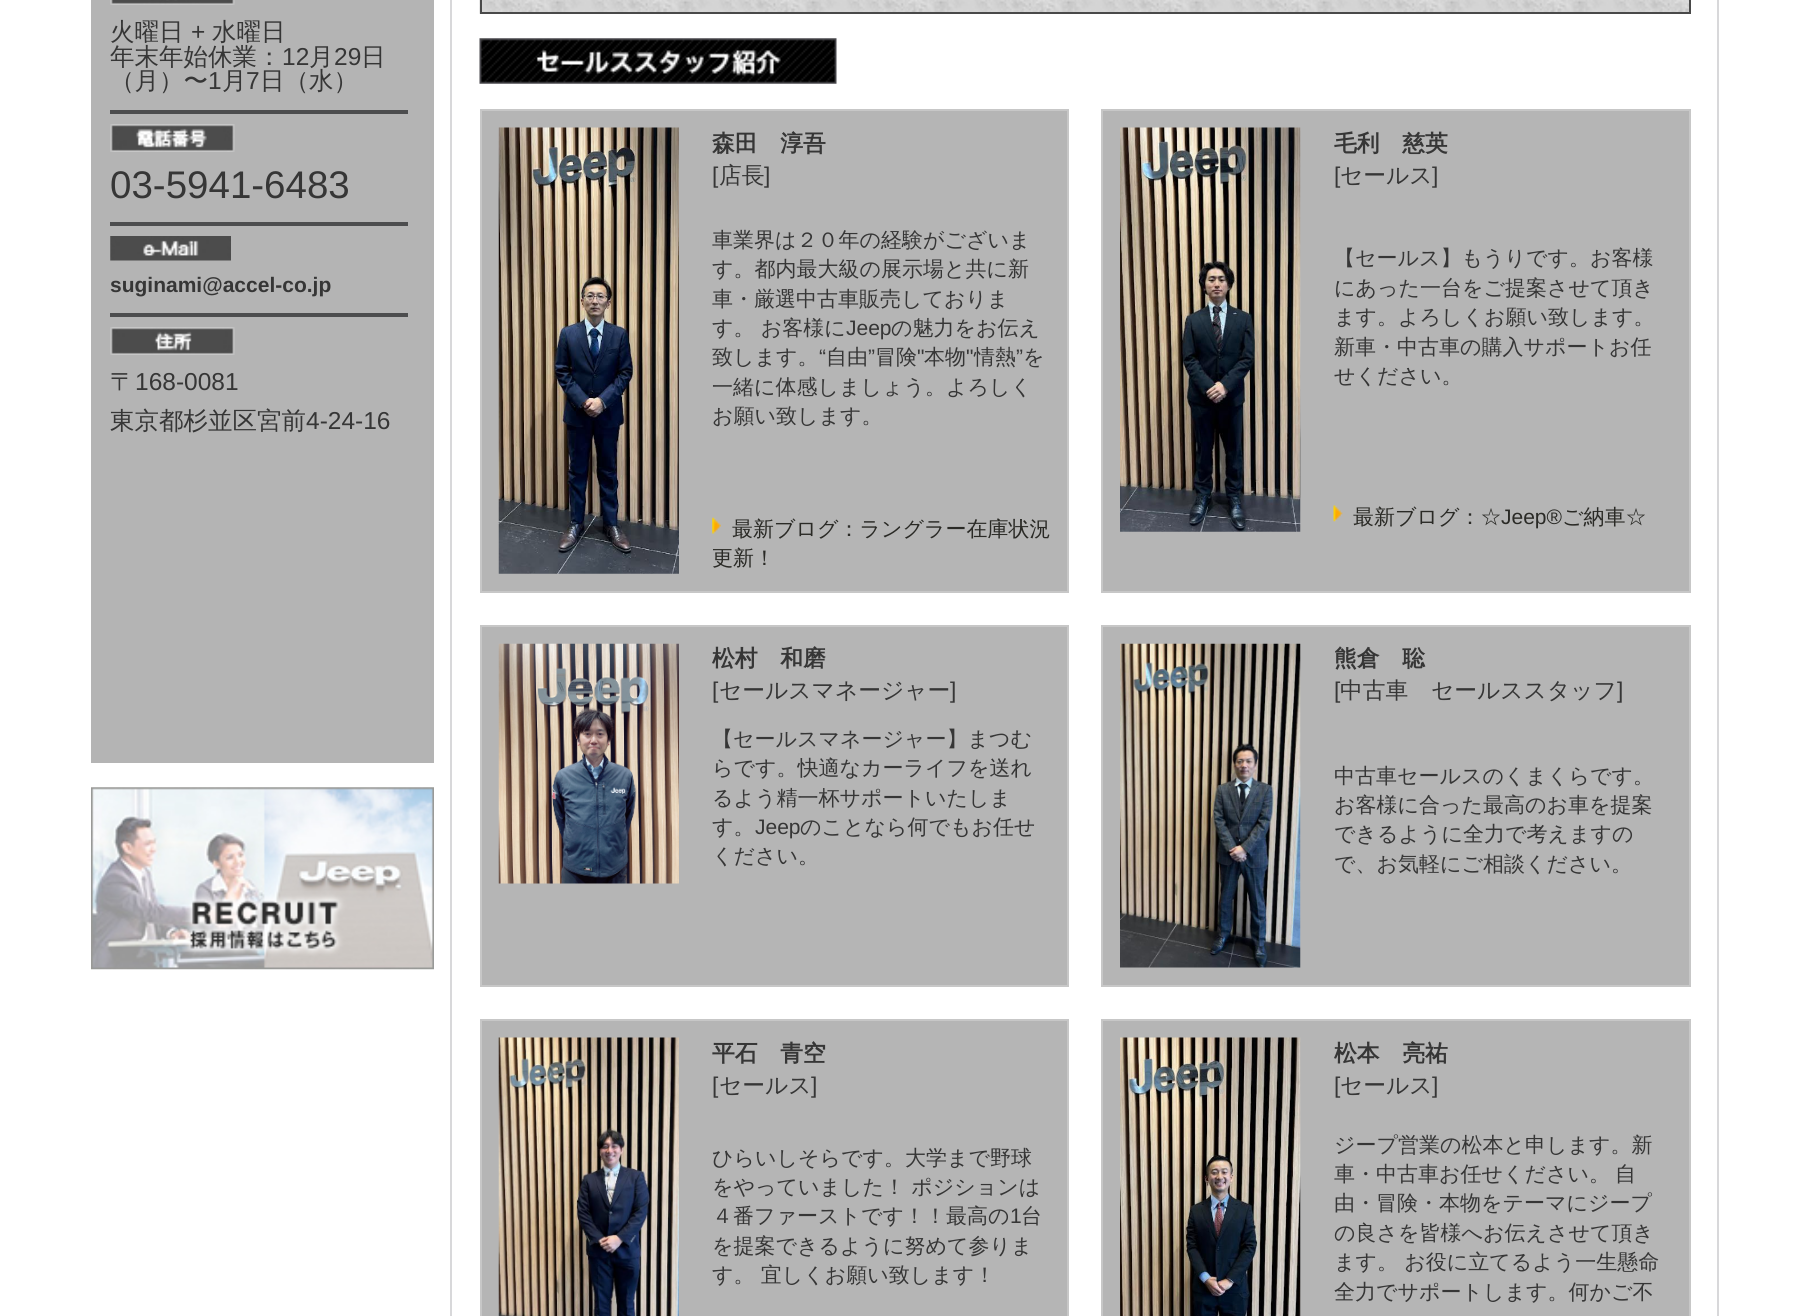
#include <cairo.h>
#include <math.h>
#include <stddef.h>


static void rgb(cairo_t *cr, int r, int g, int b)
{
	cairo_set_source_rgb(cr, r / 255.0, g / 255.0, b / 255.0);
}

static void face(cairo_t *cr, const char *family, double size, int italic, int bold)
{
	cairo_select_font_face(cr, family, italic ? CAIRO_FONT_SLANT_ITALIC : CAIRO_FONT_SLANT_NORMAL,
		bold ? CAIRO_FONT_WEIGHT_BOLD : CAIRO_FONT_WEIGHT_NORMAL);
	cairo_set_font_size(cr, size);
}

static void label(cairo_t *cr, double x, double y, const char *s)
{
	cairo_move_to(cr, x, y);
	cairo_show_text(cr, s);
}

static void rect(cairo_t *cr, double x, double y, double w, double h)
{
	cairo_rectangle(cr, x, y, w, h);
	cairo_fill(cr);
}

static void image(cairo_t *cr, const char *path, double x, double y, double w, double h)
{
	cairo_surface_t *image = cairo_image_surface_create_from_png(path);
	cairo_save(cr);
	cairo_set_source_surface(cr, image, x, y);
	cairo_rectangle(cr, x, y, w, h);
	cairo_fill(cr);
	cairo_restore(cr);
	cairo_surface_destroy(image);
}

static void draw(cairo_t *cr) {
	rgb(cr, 255, 255, 255);
	cairo_paint(cr);
	rgb(cr, 180, 180, 180);
	rect(cr, 91, 0, 343, 763);
	image(cr, "image0.png", 110, 0, 125, 5);
	face(cr, "WenQuanYi Zen Hei Medium", 24.5, 0, 0);
	rgb(cr, 54, 54, 54);
	label(cr, 110, 40, "火曜日");
	face(cr, "Liberation Sans", 24.5, 0, 0);
	label(cr, 191, 40, "+");
	face(cr, "WenQuanYi Zen Hei Medium", 24.5, 0, 0);
	label(cr, 212, 40, "水曜日");
	label(cr, 110, 65, "年末年始休業：");
	face(cr, "Liberation Sans", 24.5, 0, 0);
	label(cr, 282, 65, "12");
	face(cr, "WenQuanYi Zen Hei Medium", 24.5, 0, 0);
	label(cr, 309, 65, "月");
	face(cr, "Liberation Sans", 24.5, 0, 0);
	label(cr, 334, 65, "29");
	face(cr, "WenQuanYi Zen Hei Medium", 24.5, 0, 0);
	label(cr, 361, 65, "日");
	label(cr, 110, 89, "（月）〜");
	face(cr, "Liberation Sans", 24.5, 0, 0);
	label(cr, 208, 89, "1");
	face(cr, "WenQuanYi Zen Hei Medium", 24.5, 0, 0);
	label(cr, 222, 89, "月");
	face(cr, "Liberation Sans", 24.5, 0, 0);
	label(cr, 246, 89, "7");
	face(cr, "WenQuanYi Zen Hei Medium", 24.5, 0, 0);
	label(cr, 260, 89, "日（水）");
	rgb(cr, 76, 77, 78);
	rect(cr, 110, 110, 298, 4);
	image(cr, "image1.png", 110, 124, 125, 28);
	face(cr, "Liberation Sans", 38.5, 0, 0);
	rgb(cr, 54, 54, 54);
	label(cr, 110, 198, "03-5941-6483");
	rgb(cr, 76, 77, 78);
	rect(cr, 110, 222, 298, 4);
	image(cr, "image2.png", 110, 236, 121, 25);
	face(cr, "Liberation Sans", 21, 0, 1);
	rgb(cr, 54, 54, 54);
	label(cr, 110, 292, "suginami@accel-co.jp");
	rgb(cr, 76, 77, 78);
	rect(cr, 110, 313, 298, 4);
	image(cr, "image3.png", 110, 327, 125, 28);
	face(cr, "WenQuanYi Zen Hei Medium", 24.5, 0, 0);
	rgb(cr, 54, 54, 54);
	label(cr, 110, 390, "〒");
	face(cr, "Liberation Sans", 24.5, 0, 0);
	label(cr, 135, 390, "168-0081");
	face(cr, "WenQuanYi Zen Hei Medium", 24.5, 0, 0);
	label(cr, 110, 429, "東京都杉並区宮前");
	face(cr, "Liberation Sans", 24.5, 0, 0);
	label(cr, 306, 429, "4-24-16");
	image(cr, "image4.png", 91, 787, 343, 183);
	rgb(cr, 216, 216, 218);
	rect(cr, 1717, 0, 2, 1316);
	rect(cr, 450, 0, 2, 1316);
	image(cr, "image5.png", 479, 0, 1210, 14);
	cairo_rectangle(cr, 481, -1, 1209, 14);
	rgb(cr, 73, 73, 73);
	cairo_stroke(cr);
	image(cr, "image6.png", 479, 38, 358, 46);
	rgb(cr, 181, 181, 181);
	cairo_rectangle(cr, 481, 110, 587, 482);
	cairo_fill_preserve(cr);
	rgb(cr, 199, 199, 199);
	cairo_stroke(cr);
	image(cr, "image7.png", 498, 127, 181, 447);
	face(cr, "WenQuanYi Zen Hei", 22.75, 0, 1);
	rgb(cr, 54, 54, 54);
	label(cr, 712, 151, "森田　淳吾");
	face(cr, "Liberation Sans", 22.75, 0, 0);
	label(cr, 712, 183, "[");
	face(cr, "WenQuanYi Zen Hei Medium", 22.75, 0, 0);
	label(cr, 719, 183, "店長");
	face(cr, "Liberation Sans", 22.75, 0, 0);
	label(cr, 764, 183, "]");
	face(cr, "WenQuanYi Zen Hei Medium", 21, 0, 0);
	label(cr, 712, 247, "車業界は２０年の経験がございま");
	label(cr, 712, 276, "す。都内最大級の展示場と共に新");
	label(cr, 712, 306, "車・厳選中古車販売しておりま");
	label(cr, 712, 335, "す。 お客様に");
	face(cr, "Liberation Sans", 21, 0, 0);
	label(cr, 846, 335, "Jeep");
	face(cr, "WenQuanYi Zen Hei Medium", 21, 0, 0);
	label(cr, 891, 335, "の魅力をお伝え");
	label(cr, 712, 364, "致します。");
	face(cr, "Liberation Sans", 21, 0, 0);
	label(cr, 819, 364, "“");
	face(cr, "WenQuanYi Zen Hei Medium", 21, 0, 0);
	label(cr, 826, 364, "自由");
	face(cr, "Liberation Sans", 21, 0, 0);
	label(cr, 868, 364, "”");
	face(cr, "WenQuanYi Zen Hei Medium", 21, 0, 0);
	label(cr, 875, 364, "冒険");
	face(cr, "Liberation Sans", 21, 0, 0);
	label(cr, 917, 364, "\"");
	face(cr, "WenQuanYi Zen Hei Medium", 21, 0, 0);
	label(cr, 924, 364, "本物");
	face(cr, "Liberation Sans", 21, 0, 0);
	label(cr, 966, 364, "\"");
	face(cr, "WenQuanYi Zen Hei Medium", 21, 0, 0);
	label(cr, 974, 364, "情熱");
	face(cr, "Liberation Sans", 21, 0, 0);
	label(cr, 1016, 364, "”");
	face(cr, "WenQuanYi Zen Hei Medium", 21, 0, 0);
	label(cr, 1023, 364, "を");
	label(cr, 712, 394, "一緒に体感しましょう。よろしく");
	label(cr, 712, 423, "お願い致します。");
	image(cr, "image8.png", 712, 517, 9, 17);
	rgb(cr, 42, 42, 38);
	label(cr, 732, 536, "最新ブログ：ラングラー在庫状況");
	label(cr, 712, 565, "更新！");
	rgb(cr, 181, 181, 181);
	cairo_rectangle(cr, 1102, 110, 588, 482);
	cairo_fill_preserve(cr);
	rgb(cr, 199, 199, 199);
	cairo_stroke(cr);
	image(cr, "image9.png", 1120, 127, 181, 405);
	face(cr, "WenQuanYi Zen Hei", 22.75, 0, 1);
	rgb(cr, 54, 54, 54);
	label(cr, 1334, 151, "毛利　慈英");
	face(cr, "Liberation Sans", 22.75, 0, 0);
	label(cr, 1334, 183, "[");
	face(cr, "WenQuanYi Zen Hei Medium", 22.75, 0, 0);
	label(cr, 1340, 183, "セールス");
	face(cr, "Liberation Sans", 22.75, 0, 0);
	label(cr, 1432, 183, "]");
	face(cr, "WenQuanYi Zen Hei Medium", 21, 0, 0);
	label(cr, 1334, 265, "【セールス】もうりです。お客様");
	label(cr, 1334, 295, "にあった一台をご提案させて頂き");
	label(cr, 1334, 324, "ます。よろしくお願い致します。");
	label(cr, 1334, 354, "新車・中古車の購入サポートお任");
	label(cr, 1334, 383, "せください。");
	image(cr, "image10.png", 1333, 505, 10, 17);
	rgb(cr, 42, 42, 38);
	label(cr, 1353, 524, "最新ブログ：☆");
	face(cr, "Liberation Sans", 21, 0, 0);
	label(cr, 1501, 524, "Jeep®");
	face(cr, "WenQuanYi Zen Hei Medium", 21, 0, 0);
	label(cr, 1562, 524, "ご納車☆");
	rgb(cr, 181, 181, 181);
	cairo_rectangle(cr, 481, 626, 587, 360);
	cairo_fill_preserve(cr);
	rgb(cr, 199, 199, 199);
	cairo_stroke(cr);
	image(cr, "image11.png", 498, 643, 181, 241);
	face(cr, "WenQuanYi Zen Hei", 22.75, 0, 1);
	rgb(cr, 54, 54, 54);
	label(cr, 712, 666, "松村　和磨");
	face(cr, "Liberation Sans", 22.75, 0, 0);
	label(cr, 712, 698, "[");
	face(cr, "WenQuanYi Zen Hei Medium", 22.75, 0, 0);
	label(cr, 719, 698, "セールスマネージャー");
	face(cr, "Liberation Sans", 22.75, 0, 0);
	label(cr, 950, 698, "]");
	face(cr, "WenQuanYi Zen Hei Medium", 21, 0, 0);
	label(cr, 712, 746, "【セールスマネージャー】まつむ");
	label(cr, 712, 775, "らです。快適なカーライフを送れ");
	label(cr, 712, 805, "るよう精一杯サポートいたしま");
	label(cr, 712, 834, "す。");
	face(cr, "Liberation Sans", 21, 0, 0);
	label(cr, 755, 834, "Jeep");
	face(cr, "WenQuanYi Zen Hei Medium", 21, 0, 0);
	label(cr, 800, 834, "のことなら何でもお任せ");
	label(cr, 712, 863, "ください。");
	rgb(cr, 181, 181, 181);
	cairo_rectangle(cr, 1102, 626, 588, 360);
	cairo_fill_preserve(cr);
	rgb(cr, 199, 199, 199);
	cairo_stroke(cr);
	image(cr, "image12.png", 1120, 643, 181, 325);
	face(cr, "WenQuanYi Zen Hei", 22.75, 0, 1);
	rgb(cr, 54, 54, 54);
	label(cr, 1334, 666, "熊倉　聡");
	face(cr, "Liberation Sans", 22.75, 0, 0);
	label(cr, 1334, 698, "[");
	face(cr, "WenQuanYi Zen Hei Medium", 22.75, 0, 0);
	label(cr, 1340, 698, "中古車　セールススタッフ");
	face(cr, "Liberation Sans", 22.75, 0, 0);
	label(cr, 1617, 698, "]");
	face(cr, "WenQuanYi Zen Hei Medium", 21, 0, 0);
	label(cr, 1334, 783, "中古車セールスのくまくらです。");
	label(cr, 1334, 812, "お客様に合った最高のお車を提案");
	label(cr, 1334, 841, "できるように全力で考えますの");
	label(cr, 1334, 871, "で、お気軽にご相談ください。");
	rgb(cr, 181, 181, 181);
	cairo_rectangle(cr, 481, 1020, 587, 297);
	cairo_fill_preserve(cr);
	rgb(cr, 199, 199, 199);
	cairo_stroke(cr);
	image(cr, "image13.png", 498, 1037, 181, 279);
	face(cr, "WenQuanYi Zen Hei", 22.75, 0, 1);
	rgb(cr, 54, 54, 54);
	label(cr, 712, 1061, "平石　青空");
	face(cr, "Liberation Sans", 22.75, 0, 0);
	label(cr, 712, 1093, "[");
	face(cr, "WenQuanYi Zen Hei Medium", 22.75, 0, 0);
	label(cr, 719, 1093, "セールス");
	face(cr, "Liberation Sans", 22.75, 0, 0);
	label(cr, 811, 1093, "]");
	face(cr, "WenQuanYi Zen Hei Medium", 21, 0, 0);
	label(cr, 712, 1165, "ひらいしそらです。大学まで野球");
	label(cr, 712, 1194, "をやっていました！ ポジションは");
	label(cr, 712, 1223, "４番ファーストです！！最高の");
	face(cr, "Liberation Sans", 21, 0, 0);
	label(cr, 1010, 1223, "1");
	face(cr, "WenQuanYi Zen Hei Medium", 21, 0, 0);
	label(cr, 1021, 1223, "台");
	label(cr, 712, 1253, "を提案できるように努めて参りま");
	label(cr, 712, 1282, "す。 宜しくお願い致します！");
	rgb(cr, 181, 181, 181);
	cairo_rectangle(cr, 1102, 1020, 588, 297);
	cairo_fill_preserve(cr);
	rgb(cr, 199, 199, 199);
	cairo_stroke(cr);
	image(cr, "image14.png", 1120, 1037, 181, 279);
	face(cr, "WenQuanYi Zen Hei", 22.75, 0, 1);
	rgb(cr, 54, 54, 54);
	label(cr, 1334, 1061, "松本　亮祐");
	face(cr, "Liberation Sans", 22.75, 0, 0);
	label(cr, 1334, 1093, "[");
	face(cr, "WenQuanYi Zen Hei Medium", 22.75, 0, 0);
	label(cr, 1340, 1093, "セールス");
	face(cr, "Liberation Sans", 22.75, 0, 0);
	label(cr, 1432, 1093, "]");
	face(cr, "WenQuanYi Zen Hei Medium", 21, 0, 0);
	label(cr, 1334, 1152, "ジープ営業の松本と申します。新");
	label(cr, 1334, 1181, "車・中古車お任せください。");
	label(cr, 1615, 1181, "自");
	label(cr, 1334, 1210, "由・冒険・本物をテーマにジープ");
	label(cr, 1334, 1240, "の良さを皆様へお伝えさせて頂き");
	label(cr, 1334, 1269, "ます。 お役に立てるよう一生懸命");
	label(cr, 1334, 1299, "全力でサポートします。何かご不");
}

int main(void) {
	cairo_surface_t *surface = cairo_image_surface_create(CAIRO_FORMAT_RGB24, 1808, 1316);
	cairo_t *cr = cairo_create(surface);
	cairo_font_options_t *options = cairo_font_options_create();
	cairo_font_options_set_hint_metrics(options, CAIRO_HINT_METRICS_OFF);
	cairo_font_options_set_hint_style(options, CAIRO_HINT_STYLE_NONE);
	cairo_set_font_options(cr, options);
	cairo_set_miter_limit(cr, 4);
	draw(cr);
	cairo_surface_write_to_png(surface, "render.png");
	cairo_font_options_destroy(options);
	cairo_destroy(cr);
	cairo_surface_destroy(surface);
	return 0;
}
